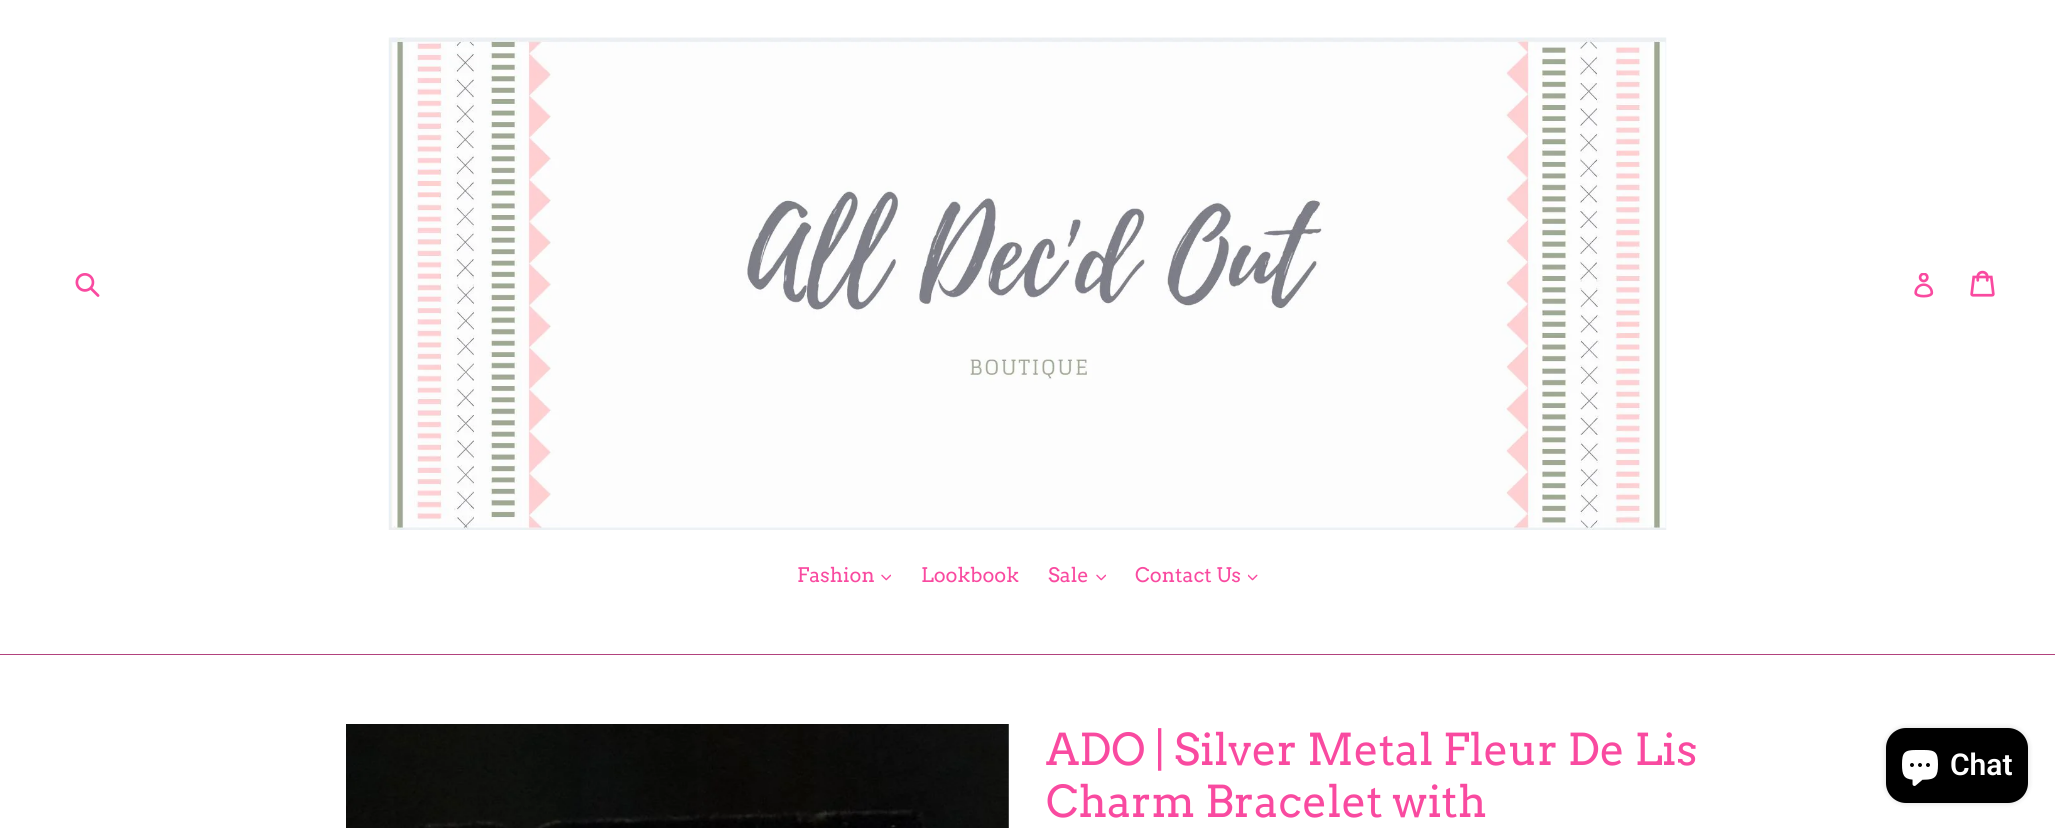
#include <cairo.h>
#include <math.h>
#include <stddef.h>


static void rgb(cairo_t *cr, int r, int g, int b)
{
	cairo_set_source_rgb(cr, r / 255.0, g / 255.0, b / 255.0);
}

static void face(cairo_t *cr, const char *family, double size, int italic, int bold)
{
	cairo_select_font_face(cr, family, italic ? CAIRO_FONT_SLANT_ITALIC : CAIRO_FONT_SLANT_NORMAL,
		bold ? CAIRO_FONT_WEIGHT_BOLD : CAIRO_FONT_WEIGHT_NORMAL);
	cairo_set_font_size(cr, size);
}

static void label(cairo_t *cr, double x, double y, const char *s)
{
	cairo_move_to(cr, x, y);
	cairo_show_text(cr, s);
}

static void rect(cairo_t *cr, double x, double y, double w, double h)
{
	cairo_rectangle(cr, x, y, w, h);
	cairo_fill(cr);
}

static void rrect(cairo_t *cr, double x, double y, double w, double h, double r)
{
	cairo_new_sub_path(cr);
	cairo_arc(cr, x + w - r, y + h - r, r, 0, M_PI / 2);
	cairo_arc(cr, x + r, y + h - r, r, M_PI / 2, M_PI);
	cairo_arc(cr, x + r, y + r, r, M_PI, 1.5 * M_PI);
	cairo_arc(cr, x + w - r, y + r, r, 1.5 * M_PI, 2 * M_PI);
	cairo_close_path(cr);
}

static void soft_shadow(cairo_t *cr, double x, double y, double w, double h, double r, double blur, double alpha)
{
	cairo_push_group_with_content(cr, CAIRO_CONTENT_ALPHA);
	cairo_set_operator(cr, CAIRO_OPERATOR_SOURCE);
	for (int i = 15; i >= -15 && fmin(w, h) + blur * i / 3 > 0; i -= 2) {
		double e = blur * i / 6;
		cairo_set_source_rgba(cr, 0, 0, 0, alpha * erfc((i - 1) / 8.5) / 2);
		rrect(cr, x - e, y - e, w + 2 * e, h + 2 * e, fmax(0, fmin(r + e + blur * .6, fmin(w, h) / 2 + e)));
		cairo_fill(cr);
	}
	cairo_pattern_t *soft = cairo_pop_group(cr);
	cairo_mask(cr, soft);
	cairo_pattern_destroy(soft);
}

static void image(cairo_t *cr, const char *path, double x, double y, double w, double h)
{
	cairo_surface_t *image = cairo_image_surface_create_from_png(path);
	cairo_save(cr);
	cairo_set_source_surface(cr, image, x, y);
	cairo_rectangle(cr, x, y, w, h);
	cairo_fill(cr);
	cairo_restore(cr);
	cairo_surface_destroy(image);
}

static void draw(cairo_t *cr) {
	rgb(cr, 255, 255, 255);
	cairo_paint(cr);
	image(cr, "image0.png", 75, 273, 25, 24);
	image(cr, "image1.png", 388, 37, 1279, 493);
	image(cr, "image2.png", 1914, 273, 20, 25);
	image(cr, "image3.png", 1970, 270, 25, 27);
	rgb(cr, 178, 66, 125);
	rect(cr, 0, 654, 2055, 1);
	face(cr, "Arvo", 20, 0, 0);
	rgb(cr, 249, 74, 160);
	label(cr, 797, 582, "Fashion");
	image(cr, "image4.png", 881, 574, 10, 7);
	label(cr, 921, 582, "Lookbook");
	label(cr, 1048, 582, "Sale");
	image(cr, "image4.png", 1096, 574, 10, 7);
	label(cr, 1135, 582, "Contact Us");
	image(cr, "image5.png", 1248, 574, 10, 7);
	image(cr, "image6.png", 346, 724, 663, 104);
	face(cr, "Arvo", 43.75, 0, 0);
	label(cr, 1046, 765, "ADO | Silver Metal Fleur De Lis");
	label(cr, 1046, 817, "Charm Bracelet with");
	rgb(cr, 0, 0, 0);
	soft_shadow(cr, 1886, 728, 142, 75, 20, 3, 0.15);
	rgb(cr, 0, 0, 0);
	rrect(cr, 1886, 728, 142, 75, 20);
	cairo_fill(cr);
	image(cr, "image7.png", 1902, 750, 36, 36);
	face(cr, "Roboto SemiBold", 30, 0, 0);
	rgb(cr, 255, 255, 255);
	label(cr, 1950, 775, "Chat");
}

int main(void) {
	cairo_surface_t *surface = cairo_image_surface_create(CAIRO_FORMAT_RGB24, 2055, 828);
	cairo_t *cr = cairo_create(surface);
	cairo_font_options_t *options = cairo_font_options_create();
	cairo_font_options_set_hint_metrics(options, CAIRO_HINT_METRICS_OFF);
	cairo_font_options_set_hint_style(options, CAIRO_HINT_STYLE_NONE);
	cairo_set_font_options(cr, options);
	cairo_set_miter_limit(cr, 4);
	draw(cr);
	cairo_surface_write_to_png(surface, "render.png");
	cairo_font_options_destroy(options);
	cairo_destroy(cr);
	cairo_surface_destroy(surface);
	return 0;
}
